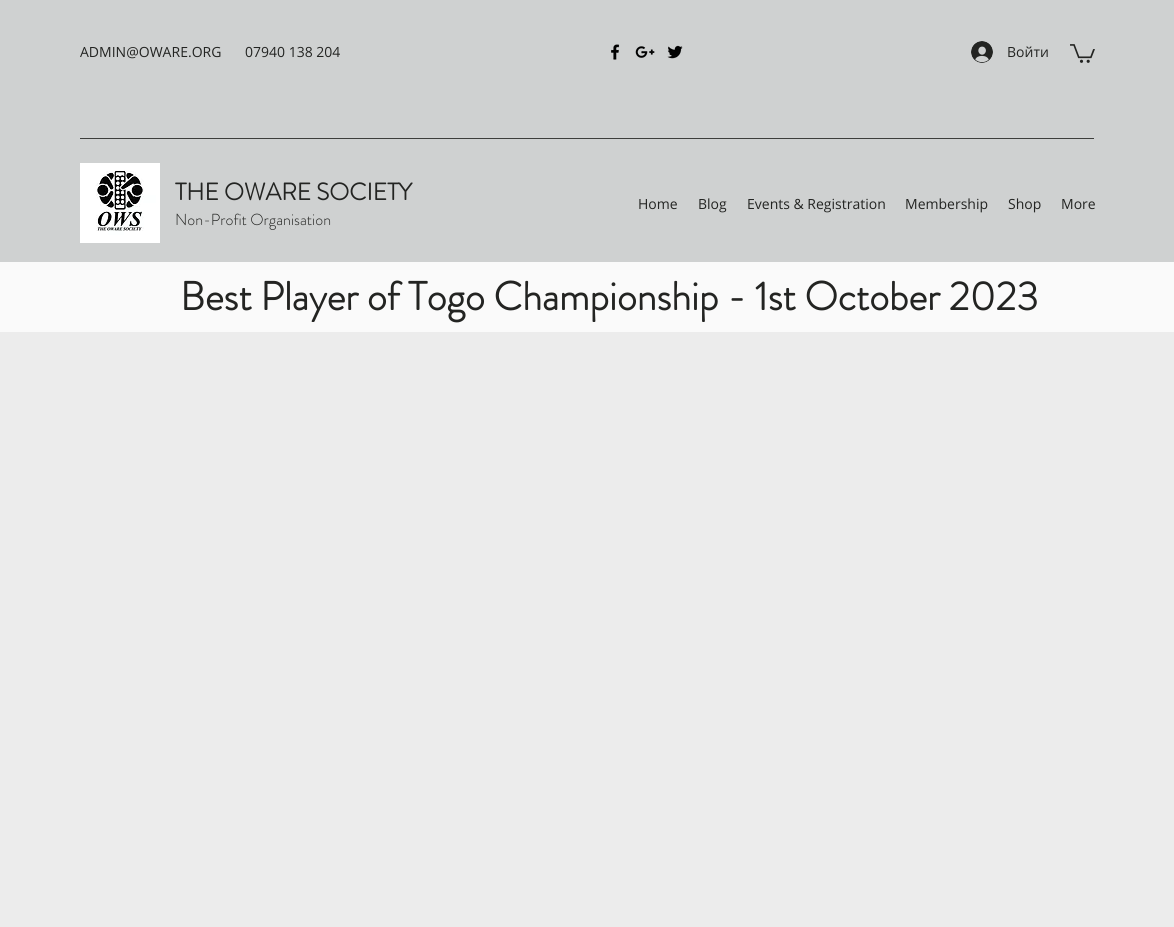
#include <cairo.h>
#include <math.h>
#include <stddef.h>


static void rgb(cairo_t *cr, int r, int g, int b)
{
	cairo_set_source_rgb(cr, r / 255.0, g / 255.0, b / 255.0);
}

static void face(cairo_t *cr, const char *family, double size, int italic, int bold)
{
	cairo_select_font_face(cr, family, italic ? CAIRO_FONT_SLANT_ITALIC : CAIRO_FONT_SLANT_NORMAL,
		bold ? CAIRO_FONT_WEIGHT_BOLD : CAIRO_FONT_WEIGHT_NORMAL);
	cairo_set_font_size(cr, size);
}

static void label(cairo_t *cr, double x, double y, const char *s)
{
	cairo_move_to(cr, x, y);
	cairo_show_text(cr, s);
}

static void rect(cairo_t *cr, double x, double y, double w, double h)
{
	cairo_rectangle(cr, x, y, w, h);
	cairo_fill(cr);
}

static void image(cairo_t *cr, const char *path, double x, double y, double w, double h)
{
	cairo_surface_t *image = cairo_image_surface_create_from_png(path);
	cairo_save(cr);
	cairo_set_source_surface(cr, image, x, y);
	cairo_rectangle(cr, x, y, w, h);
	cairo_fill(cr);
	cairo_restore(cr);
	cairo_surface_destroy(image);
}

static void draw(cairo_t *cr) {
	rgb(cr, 236, 236, 236);
	cairo_paint(cr);
	rgb(cr, 207, 209, 209);
	rect(cr, 0, 0, 1174, 262);
	face(cr, "Open Sans", 14, 0, 0);
	rgb(cr, 35, 36, 34);
	label(cr, 80, 57, "ADMIN@OWARE.ORG");
	label(cr, 245, 57, "07940 138 204");
	image(cr, "image0.png", 611, 44, 9, 16);
	image(cr, "image1.png", 635, 46, 20, 12);
	image(cr, "image2.png", 667, 45, 16, 14);
	image(cr, "image3.png", 971, 41, 22, 22);
	label(cr, 1007, 57, "Войти");
	image(cr, "image4.png", 1070, 44, 25, 19);
	rgb(cr, 61, 62, 60);
	rect(cr, 80, 138, 1014, 1);
	image(cr, "image5.png", 80, 163, 80, 80);
	face(cr, "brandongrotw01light", 24, 0, 1);
	rgb(cr, 35, 36, 34);
	label(cr, 175, 200, "THE OWARE SOCIETY");
	face(cr, "brandongrotw01light Light", 16, 0, 0);
	label(cr, 175, 225, "Non-Profit Organisation");
	face(cr, "Open Sans", 14, 0, 0);
	label(cr, 638, 209, "Home");
	label(cr, 698, 209, "Blog");
	label(cr, 747, 209, "Events & Registration");
	label(cr, 905, 209, "Membership");
	label(cr, 1008, 209, "Shop");
	label(cr, 1061, 209, "More");
	rgb(cr, 250, 250, 250);
	rect(cr, 0, 262, 1174, 70);
	face(cr, "brandongrotw01light", 40, 0, 1);
	rgb(cr, 35, 36, 34);
	label(cr, 180, 310, "Best Player of Togo Championship - 1st October 2023");
}

int main(void) {
	cairo_surface_t *surface = cairo_image_surface_create(CAIRO_FORMAT_RGB24, 1174, 927);
	cairo_t *cr = cairo_create(surface);
	cairo_font_options_t *options = cairo_font_options_create();
	cairo_font_options_set_hint_metrics(options, CAIRO_HINT_METRICS_OFF);
	cairo_font_options_set_hint_style(options, CAIRO_HINT_STYLE_NONE);
	cairo_set_font_options(cr, options);
	cairo_set_miter_limit(cr, 4);
	draw(cr);
	cairo_surface_write_to_png(surface, "render.png");
	cairo_font_options_destroy(options);
	cairo_destroy(cr);
	cairo_surface_destroy(surface);
	return 0;
}
